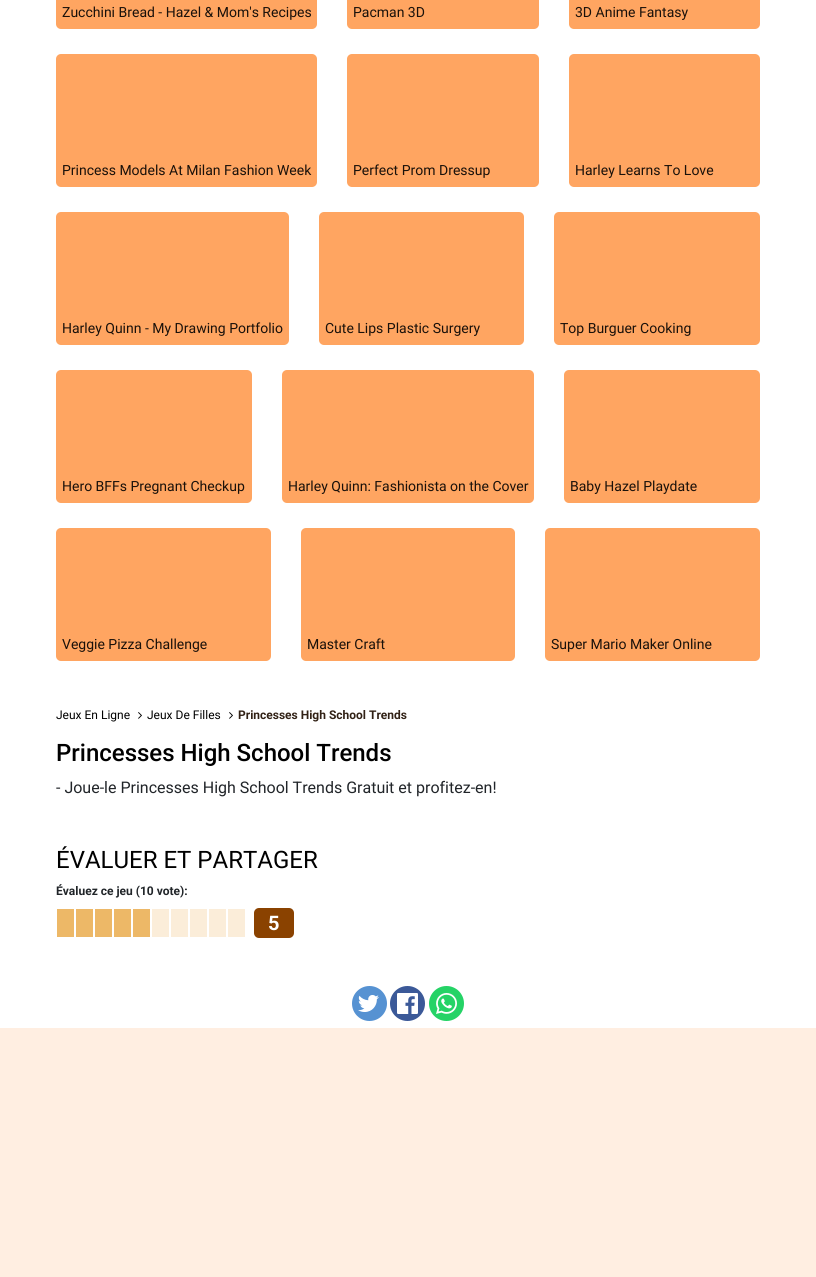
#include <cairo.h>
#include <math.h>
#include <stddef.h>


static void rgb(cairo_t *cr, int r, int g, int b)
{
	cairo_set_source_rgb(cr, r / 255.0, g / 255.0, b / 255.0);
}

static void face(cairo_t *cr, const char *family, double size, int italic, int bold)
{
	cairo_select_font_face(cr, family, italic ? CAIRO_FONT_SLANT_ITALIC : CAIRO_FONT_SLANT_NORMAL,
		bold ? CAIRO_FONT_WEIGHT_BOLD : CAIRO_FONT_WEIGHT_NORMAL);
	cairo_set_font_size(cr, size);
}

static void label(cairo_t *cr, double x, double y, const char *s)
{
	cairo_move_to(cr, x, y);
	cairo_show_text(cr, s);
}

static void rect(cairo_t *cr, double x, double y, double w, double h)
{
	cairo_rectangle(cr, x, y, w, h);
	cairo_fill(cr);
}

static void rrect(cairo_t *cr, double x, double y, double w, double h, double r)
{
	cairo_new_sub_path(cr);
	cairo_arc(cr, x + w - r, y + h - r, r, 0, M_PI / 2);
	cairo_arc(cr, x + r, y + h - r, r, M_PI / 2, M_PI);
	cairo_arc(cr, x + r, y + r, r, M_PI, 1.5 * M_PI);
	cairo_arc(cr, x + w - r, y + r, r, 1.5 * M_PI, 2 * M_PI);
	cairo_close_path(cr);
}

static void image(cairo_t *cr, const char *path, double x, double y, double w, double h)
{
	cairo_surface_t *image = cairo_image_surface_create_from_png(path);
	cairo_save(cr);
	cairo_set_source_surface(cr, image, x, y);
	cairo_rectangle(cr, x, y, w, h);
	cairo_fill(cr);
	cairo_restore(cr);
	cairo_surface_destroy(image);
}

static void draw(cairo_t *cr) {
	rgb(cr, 255, 238, 225);
	cairo_paint(cr);
	rgb(cr, 255, 255, 255);
	rect(cr, 0, 0, 816, 1028);
	rgb(cr, 255, 165, 97);
	rrect(cr, 56, -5, 261, 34, 5);
	cairo_fill(cr);
	face(cr, "Roboto", 14, 0, 0);
	rgb(cr, 26, 17, 10);
	label(cr, 62, 17, "Zucchini Bread - Hazel & Mom's Recipes");
	rgb(cr, 255, 165, 97);
	rrect(cr, 347, -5, 192, 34, 5);
	cairo_fill(cr);
	rgb(cr, 26, 17, 10);
	label(cr, 353, 17, "Pacman 3D");
	rgb(cr, 255, 165, 97);
	rrect(cr, 569, -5, 191, 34, 5);
	cairo_fill(cr);
	rgb(cr, 26, 17, 10);
	label(cr, 575, 17, "3D Anime Fantasy");
	rgb(cr, 255, 165, 97);
	rrect(cr, 56, 54, 261, 133, 5);
	cairo_fill(cr);
	rgb(cr, 26, 17, 10);
	label(cr, 62, 175, "Princess Models At Milan Fashion Week");
	rgb(cr, 255, 165, 97);
	rrect(cr, 347, 54, 192, 133, 5);
	cairo_fill(cr);
	rgb(cr, 26, 17, 10);
	label(cr, 353, 175, "Perfect Prom Dressup");
	rgb(cr, 255, 165, 97);
	rrect(cr, 569, 54, 191, 133, 5);
	cairo_fill(cr);
	rgb(cr, 26, 17, 10);
	label(cr, 575, 175, "Harley Learns To Love");
	rgb(cr, 255, 165, 97);
	rrect(cr, 56, 212, 233, 133, 5);
	cairo_fill(cr);
	rgb(cr, 26, 17, 10);
	label(cr, 62, 333, "Harley Quinn - My Drawing Portfolio");
	rgb(cr, 255, 165, 97);
	rrect(cr, 319, 212, 205, 133, 5);
	cairo_fill(cr);
	rgb(cr, 26, 17, 10);
	label(cr, 325, 333, "Cute Lips Plastic Surgery");
	rgb(cr, 255, 165, 97);
	rrect(cr, 554, 212, 206, 133, 5);
	cairo_fill(cr);
	rgb(cr, 26, 17, 10);
	label(cr, 560, 333, "Top Burguer Cooking");
	rgb(cr, 255, 165, 97);
	rrect(cr, 56, 370, 196, 133, 5);
	cairo_fill(cr);
	rgb(cr, 26, 17, 10);
	label(cr, 62, 491, "Hero BFFs Pregnant Checkup");
	rgb(cr, 255, 165, 97);
	rrect(cr, 282, 370, 252, 133, 5);
	cairo_fill(cr);
	rgb(cr, 26, 17, 10);
	label(cr, 288, 491, "Harley Quinn: Fashionista on the Cover");
	rgb(cr, 255, 165, 97);
	rrect(cr, 564, 370, 196, 133, 5);
	cairo_fill(cr);
	rgb(cr, 26, 17, 10);
	label(cr, 570, 491, "Baby Hazel Playdate");
	rgb(cr, 255, 165, 97);
	rrect(cr, 56, 528, 215, 133, 5);
	cairo_fill(cr);
	rgb(cr, 26, 17, 10);
	label(cr, 62, 649, "Veggie Pizza Challenge");
	rgb(cr, 255, 165, 97);
	rrect(cr, 301, 528, 214, 133, 5);
	cairo_fill(cr);
	rgb(cr, 26, 17, 10);
	label(cr, 307, 649, "Master Craft");
	rgb(cr, 255, 165, 97);
	rrect(cr, 545, 528, 215, 133, 5);
	cairo_fill(cr);
	rgb(cr, 26, 17, 10);
	label(cr, 551, 649, "Super Mario Maker Online");
	face(cr, "Roboto", 12, 0, 0);
	rgb(cr, 0, 0, 0);
	label(cr, 56, 719, "Jeux En Ligne");
	image(cr, "image0.png", 138, 712, 4, 7);
	label(cr, 147, 719, "Jeux De Filles");
	image(cr, "image0.png", 229, 712, 4, 7);
	face(cr, "Roboto", 12, 0, 1);
	rgb(cr, 49, 33, 21);
	label(cr, 238, 719, "Princesses High School Trends");
	face(cr, "Roboto Medium", 24, 0, 0);
	rgb(cr, 0, 0, 0);
	label(cr, 56, 761, "Princesses High School Trends");
	face(cr, "Roboto", 16, 0, 0);
	rgb(cr, 33, 37, 41);
	label(cr, 56, 793, "- Joue-le Princesses High School Trends Gratuit et profitez-en!");
	face(cr, "Roboto", 24, 0, 0);
	rgb(cr, 0, 0, 0);
	label(cr, 56, 868, "ÉVALUER ET PARTAGER");
	face(cr, "Roboto", 12, 0, 1);
	rgb(cr, 33, 37, 41);
	label(cr, 56, 895, "Évaluez ce jeu (10 vote):");
	rgb(cr, 237, 184, 103);
	rect(cr, 57, 909, 17, 28);
	rect(cr, 76, 909, 17, 28);
	rect(cr, 95, 909, 17, 28);
	rect(cr, 114, 909, 17, 28);
	rect(cr, 133, 909, 17, 28);
	rgb(cr, 251, 237, 217);
	rect(cr, 152, 909, 17, 28);
	rect(cr, 171, 909, 17, 28);
	rect(cr, 190, 909, 17, 28);
	rect(cr, 209, 909, 17, 28);
	rect(cr, 228, 909, 17, 28);
	rgb(cr, 138, 66, 0);
	rrect(cr, 254, 908, 40, 30, 5);
	cairo_fill(cr);
	face(cr, "Roboto", 20, 0, 1);
	rgb(cr, 255, 255, 255);
	label(cr, 268, 930, "5");
	rgb(cr, 86, 146, 210);
	cairo_new_path(cr);
	cairo_arc(cr, 369.5, 1003.5, 17.5, 0, 2 * M_PI);
	cairo_fill(cr);
	image(cr, "image1.png", 358, 995, 21, 17);
	rgb(cr, 59, 89, 152);
	cairo_arc(cr, 407.5, 1003.5, 17.5, 0, 2 * M_PI);
	cairo_fill(cr);
	image(cr, "image2.png", 397, 993, 21, 21);
	rgb(cr, 37, 211, 102);
	cairo_arc(cr, 446.5, 1003.5, 17.5, 0, 2 * M_PI);
	cairo_fill(cr);
	image(cr, "image3.png", 436, 993, 21, 21);
}

int main(void) {
	cairo_surface_t *surface = cairo_image_surface_create(CAIRO_FORMAT_RGB24, 816, 1277);
	cairo_t *cr = cairo_create(surface);
	cairo_font_options_t *options = cairo_font_options_create();
	cairo_font_options_set_hint_metrics(options, CAIRO_HINT_METRICS_OFF);
	cairo_font_options_set_hint_style(options, CAIRO_HINT_STYLE_NONE);
	cairo_set_font_options(cr, options);
	cairo_set_miter_limit(cr, 4);
	draw(cr);
	cairo_surface_write_to_png(surface, "render.png");
	cairo_font_options_destroy(options);
	cairo_destroy(cr);
	cairo_surface_destroy(surface);
	return 0;
}
